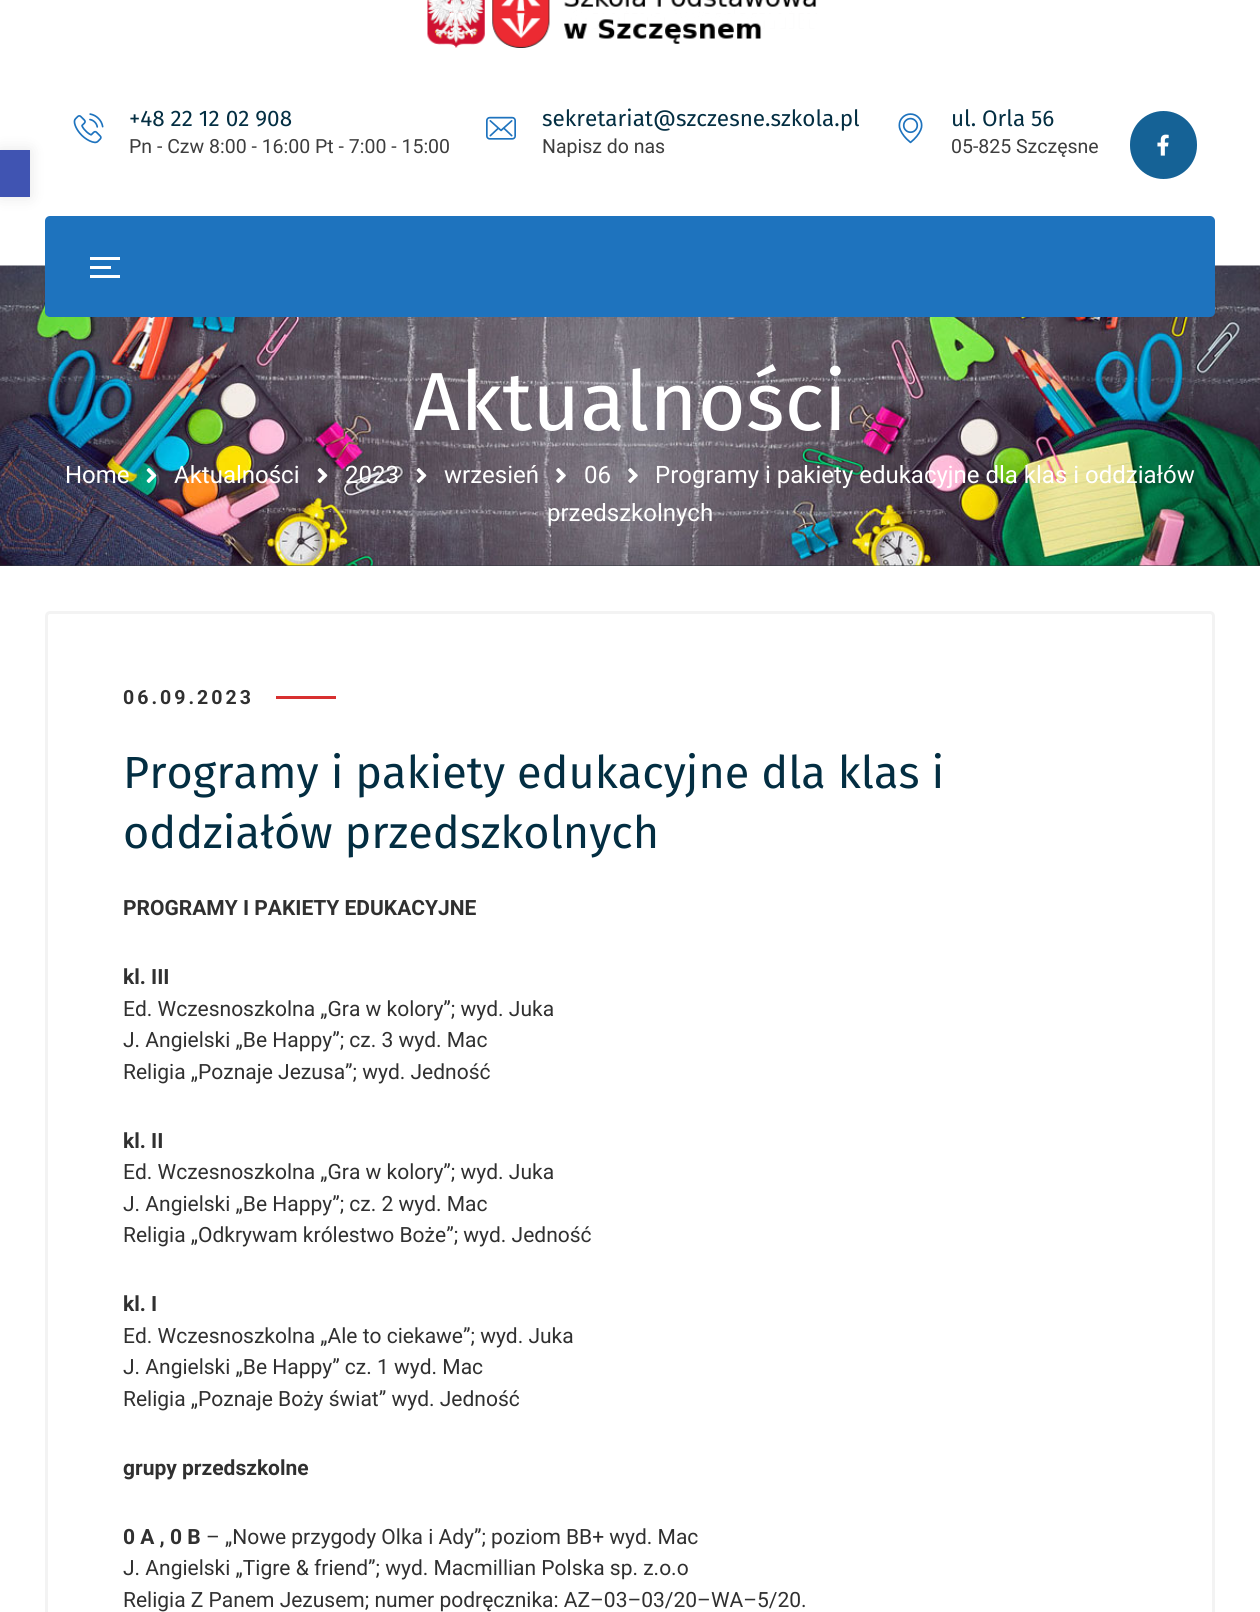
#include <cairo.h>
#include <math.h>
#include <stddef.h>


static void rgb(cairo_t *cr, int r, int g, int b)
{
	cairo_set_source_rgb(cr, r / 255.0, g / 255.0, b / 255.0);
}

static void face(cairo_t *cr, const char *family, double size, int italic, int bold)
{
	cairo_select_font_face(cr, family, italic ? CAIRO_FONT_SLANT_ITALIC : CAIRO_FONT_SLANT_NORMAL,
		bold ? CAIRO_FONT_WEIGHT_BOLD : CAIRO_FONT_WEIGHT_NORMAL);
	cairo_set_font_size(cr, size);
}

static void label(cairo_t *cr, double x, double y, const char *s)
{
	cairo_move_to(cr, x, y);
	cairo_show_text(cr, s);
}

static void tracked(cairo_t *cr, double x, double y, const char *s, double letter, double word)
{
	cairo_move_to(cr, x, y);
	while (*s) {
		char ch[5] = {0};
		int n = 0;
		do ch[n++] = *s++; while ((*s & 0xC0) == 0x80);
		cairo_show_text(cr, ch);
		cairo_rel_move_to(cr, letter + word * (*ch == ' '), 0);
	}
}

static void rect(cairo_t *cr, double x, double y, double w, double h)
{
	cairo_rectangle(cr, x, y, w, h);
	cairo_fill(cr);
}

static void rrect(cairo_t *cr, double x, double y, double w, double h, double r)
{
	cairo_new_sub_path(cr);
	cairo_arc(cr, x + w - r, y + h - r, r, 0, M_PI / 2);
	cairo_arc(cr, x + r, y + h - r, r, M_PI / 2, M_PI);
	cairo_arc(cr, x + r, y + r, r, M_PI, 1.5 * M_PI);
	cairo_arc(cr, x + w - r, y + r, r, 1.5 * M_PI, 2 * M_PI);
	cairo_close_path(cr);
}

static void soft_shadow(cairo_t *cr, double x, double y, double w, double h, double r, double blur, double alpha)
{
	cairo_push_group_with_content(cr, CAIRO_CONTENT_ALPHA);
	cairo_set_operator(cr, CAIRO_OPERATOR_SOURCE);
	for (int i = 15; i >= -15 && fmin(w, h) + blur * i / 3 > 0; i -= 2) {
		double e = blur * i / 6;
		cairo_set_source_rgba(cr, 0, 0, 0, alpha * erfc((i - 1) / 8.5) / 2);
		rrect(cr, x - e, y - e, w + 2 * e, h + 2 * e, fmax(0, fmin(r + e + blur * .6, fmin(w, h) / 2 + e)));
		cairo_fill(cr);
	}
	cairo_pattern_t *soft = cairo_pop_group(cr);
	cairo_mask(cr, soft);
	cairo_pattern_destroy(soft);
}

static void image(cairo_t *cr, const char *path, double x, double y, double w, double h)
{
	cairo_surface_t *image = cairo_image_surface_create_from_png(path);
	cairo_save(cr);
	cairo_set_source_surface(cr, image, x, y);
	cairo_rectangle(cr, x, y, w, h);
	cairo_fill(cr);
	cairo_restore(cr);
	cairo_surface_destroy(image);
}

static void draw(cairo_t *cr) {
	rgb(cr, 255, 255, 255);
	cairo_paint(cr);
	rgb(cr, 52, 58, 64);
	rect(cr, 0, 565, 1260, 1);
	image(cr, "image5.png", 0, 265, 1260, 301);
	rgb(cr, 30, 115, 190);
	rrect(cr, 45, 216, 1170, 101, 5);
	cairo_fill(cr);
	rgb(cr, 0, 0, 0);
	soft_shadow(cr, 0, 150, 30, 47, 0, 7.5, 0.1);
	rgb(cr, 64, 84, 178);
	rect(cr, 0, 150, 30, 47);
	image(cr, "image0.png", 427, 0, 390, 48);
	image(cr, "image1.png", 73, 113, 31, 31);
	face(cr, "Fira Sans", 22.5, 0, 0);
	rgb(cr, 3, 46, 66);
	label(cr, 129, 126, "+48 22 12 02 908");
	face(cr, "Roboto", 19.5, 0, 0);
	rgb(cr, 61, 61, 61);
	label(cr, 129, 153, "Pn - Czw 8:00 - 16:00 Pt - 7:00 - 15:00");
	image(cr, "image2.png", 486, 116, 30, 24);
	face(cr, "Fira Sans", 22.5, 0, 0);
	rgb(cr, 3, 46, 66);
	label(cr, 542, 126, "sekretariat@szczesne.szkola.pl");
	face(cr, "Roboto", 19.5, 0, 0);
	rgb(cr, 61, 61, 61);
	label(cr, 542, 153, "Napisz do nas");
	image(cr, "image3.png", 898, 113, 25, 31);
	face(cr, "Fira Sans", 22.5, 0, 0);
	rgb(cr, 3, 46, 66);
	label(cr, 951, 126, "ul. Orla 56");
	face(cr, "Roboto", 19.5, 0, 0);
	rgb(cr, 61, 61, 61);
	label(cr, 951, 153, "05-825 Szczęsne");
	rgb(cr, 21, 98, 150);
	rrect(cr, 1130, 111, 67, 68, 33.5);
	cairo_fill(cr);
	image(cr, "image4.png", 1157, 134, 12, 22);
	rgb(cr, 255, 255, 255);
	rect(cr, 90, 257, 30, 3);
	rect(cr, 90, 266, 21, 3);
	rect(cr, 90, 275, 30, 3);
	face(cr, "Fira Sans", 82.5, 0, 0);
	label(cr, 413, 430, "Aktualności");
	face(cr, "Roboto", 24, 0, 0);
	label(cr, 65, 483, "Home");
	image(cr, "image6.png", 146, 468, 11, 15);
	label(cr, 174, 483, "Aktualności");
	image(cr, "image7.png", 317, 468, 11, 15);
	label(cr, 345, 483, "2023");
	image(cr, "image8.png", 416, 468, 11, 15);
	label(cr, 444, 483, "wrzesień");
	image(cr, "image9.png", 556, 468, 10, 15);
	label(cr, 584, 483, "06");
	image(cr, "image10.png", 628, 468, 10, 15);
	label(cr, 655, 483, "Programy i pakiety edukacyjne dla klas i oddziałów");
	label(cr, 547, 521, "przedszkolnych");
	rrect(cr, 46.5, 612.5, 1167, 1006, 3.5);
	rgb(cr, 243, 243, 243);
	cairo_set_line_width(cr, 3);
	cairo_stroke(cr);
	face(cr, "Roboto", 19.5, 0, 1);
	rgb(cr, 48, 48, 48);
	tracked(cr, 123, 704, "06.09.2023", 3, 0);
	rgb(cr, 216, 48, 48);
	rect(cr, 276, 696, 60, 3);
	face(cr, "Fira Sans", 45, 0, 0);
	rgb(cr, 3, 46, 66);
	label(cr, 123, 788, "Programy i pakiety edukacyjne dla klas i");
	label(cr, 123, 848, "oddziałów przedszkolnych");
	face(cr, "Roboto", 21, 0, 1);
	rgb(cr, 48, 48, 48);
	label(cr, 123, 915, "PROGRAMY I PAKIETY EDUKACYJNE");
	label(cr, 123, 984, "kl. III");
	face(cr, "Roboto", 21, 0, 0);
	label(cr, 123, 1016, "Ed. Wczesnoszkolna „Gra w kolory”; wyd. Juka");
	label(cr, 123, 1047, "J. Angielski „Be Happy”; cz. 3 wyd. Mac");
	label(cr, 123, 1079, "Religia „Poznaje Jezusa”; wyd. Jedność");
	face(cr, "Roboto", 21, 0, 1);
	label(cr, 123, 1148, "kl. II");
	face(cr, "Roboto", 21, 0, 0);
	label(cr, 123, 1179, "Ed. Wczesnoszkolna „Gra w kolory”; wyd. Juka");
	label(cr, 123, 1211, "J. Angielski „Be Happy”; cz. 2 wyd. Mac");
	label(cr, 123, 1242, "Religia „Odkrywam królestwo Boże”; wyd. Jedność");
	face(cr, "Roboto", 21, 0, 1);
	label(cr, 123, 1311, "kl. I");
	face(cr, "Roboto", 21, 0, 0);
	label(cr, 123, 1343, "Ed. Wczesnoszkolna „Ale to ciekawe”; wyd. Juka");
	label(cr, 123, 1374, "J. Angielski „Be Happy” cz. 1 wyd. Mac");
	label(cr, 123, 1406, "Religia „Poznaje Boży świat” wyd. Jedność");
	face(cr, "Roboto", 21, 0, 1);
	label(cr, 123, 1475, "grupy przedszkolne");
	label(cr, 123, 1544, "0 A , 0 B");
	face(cr, "Roboto", 21, 0, 0);
	label(cr, 206, 1544, "– „Nowe przygody Olka i Ady”; poziom BB+ wyd. Mac");
	label(cr, 123, 1575, "J. Angielski „Tigre & friend”; wyd. Macmillian Polska sp. z.o.o");
	label(cr, 123, 1607, "Religia Z Panem Jezusem; numer podręcznika: AZ–03–03/20–WA–5/20.");
}

int main(void) {
	cairo_surface_t *surface = cairo_image_surface_create(CAIRO_FORMAT_RGB24, 1260, 1612);
	cairo_t *cr = cairo_create(surface);
	cairo_font_options_t *options = cairo_font_options_create();
	cairo_font_options_set_hint_metrics(options, CAIRO_HINT_METRICS_OFF);
	cairo_font_options_set_hint_style(options, CAIRO_HINT_STYLE_NONE);
	cairo_set_font_options(cr, options);
	cairo_set_miter_limit(cr, 4);
	draw(cr);
	cairo_surface_write_to_png(surface, "render.png");
	cairo_font_options_destroy(options);
	cairo_destroy(cr);
	cairo_surface_destroy(surface);
	return 0;
}
